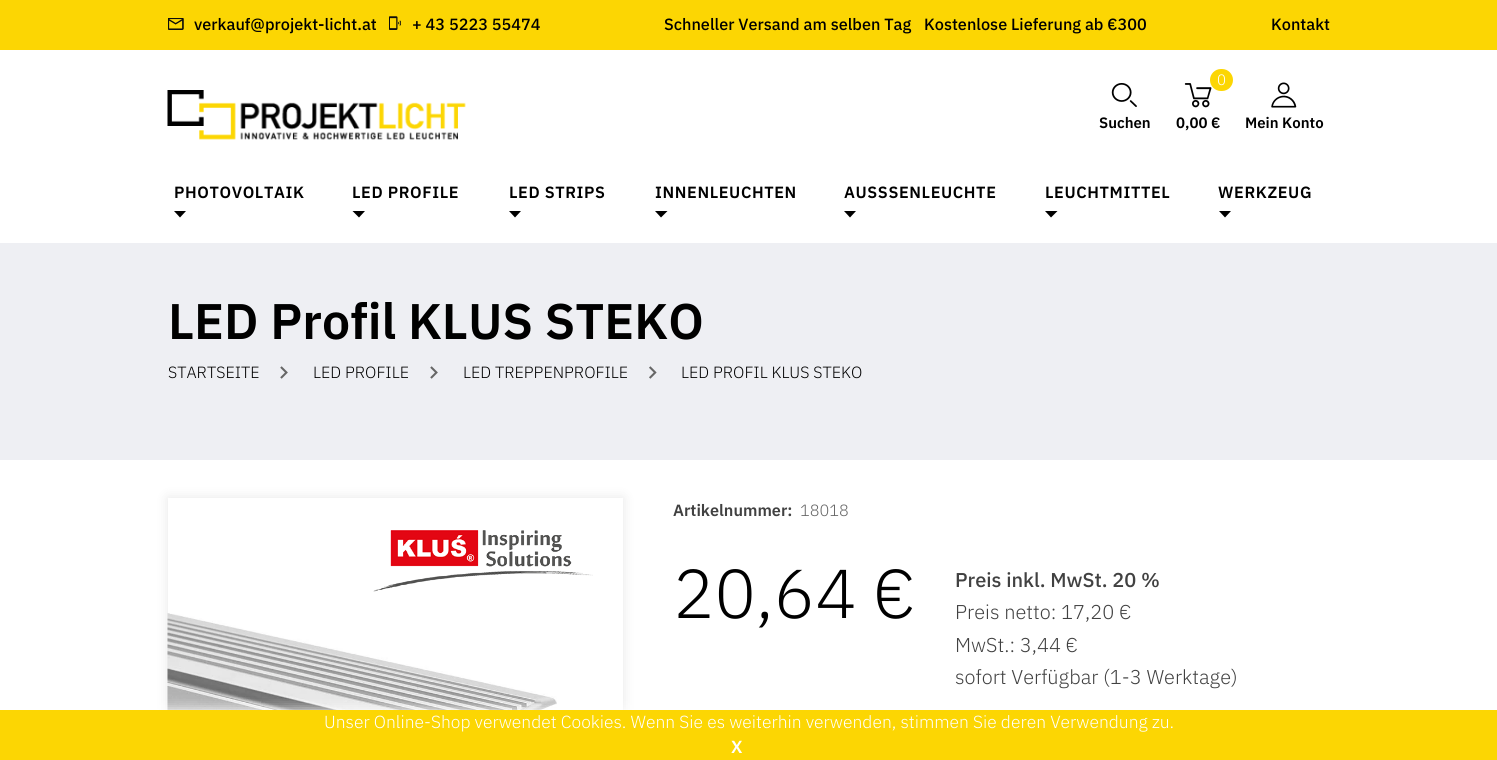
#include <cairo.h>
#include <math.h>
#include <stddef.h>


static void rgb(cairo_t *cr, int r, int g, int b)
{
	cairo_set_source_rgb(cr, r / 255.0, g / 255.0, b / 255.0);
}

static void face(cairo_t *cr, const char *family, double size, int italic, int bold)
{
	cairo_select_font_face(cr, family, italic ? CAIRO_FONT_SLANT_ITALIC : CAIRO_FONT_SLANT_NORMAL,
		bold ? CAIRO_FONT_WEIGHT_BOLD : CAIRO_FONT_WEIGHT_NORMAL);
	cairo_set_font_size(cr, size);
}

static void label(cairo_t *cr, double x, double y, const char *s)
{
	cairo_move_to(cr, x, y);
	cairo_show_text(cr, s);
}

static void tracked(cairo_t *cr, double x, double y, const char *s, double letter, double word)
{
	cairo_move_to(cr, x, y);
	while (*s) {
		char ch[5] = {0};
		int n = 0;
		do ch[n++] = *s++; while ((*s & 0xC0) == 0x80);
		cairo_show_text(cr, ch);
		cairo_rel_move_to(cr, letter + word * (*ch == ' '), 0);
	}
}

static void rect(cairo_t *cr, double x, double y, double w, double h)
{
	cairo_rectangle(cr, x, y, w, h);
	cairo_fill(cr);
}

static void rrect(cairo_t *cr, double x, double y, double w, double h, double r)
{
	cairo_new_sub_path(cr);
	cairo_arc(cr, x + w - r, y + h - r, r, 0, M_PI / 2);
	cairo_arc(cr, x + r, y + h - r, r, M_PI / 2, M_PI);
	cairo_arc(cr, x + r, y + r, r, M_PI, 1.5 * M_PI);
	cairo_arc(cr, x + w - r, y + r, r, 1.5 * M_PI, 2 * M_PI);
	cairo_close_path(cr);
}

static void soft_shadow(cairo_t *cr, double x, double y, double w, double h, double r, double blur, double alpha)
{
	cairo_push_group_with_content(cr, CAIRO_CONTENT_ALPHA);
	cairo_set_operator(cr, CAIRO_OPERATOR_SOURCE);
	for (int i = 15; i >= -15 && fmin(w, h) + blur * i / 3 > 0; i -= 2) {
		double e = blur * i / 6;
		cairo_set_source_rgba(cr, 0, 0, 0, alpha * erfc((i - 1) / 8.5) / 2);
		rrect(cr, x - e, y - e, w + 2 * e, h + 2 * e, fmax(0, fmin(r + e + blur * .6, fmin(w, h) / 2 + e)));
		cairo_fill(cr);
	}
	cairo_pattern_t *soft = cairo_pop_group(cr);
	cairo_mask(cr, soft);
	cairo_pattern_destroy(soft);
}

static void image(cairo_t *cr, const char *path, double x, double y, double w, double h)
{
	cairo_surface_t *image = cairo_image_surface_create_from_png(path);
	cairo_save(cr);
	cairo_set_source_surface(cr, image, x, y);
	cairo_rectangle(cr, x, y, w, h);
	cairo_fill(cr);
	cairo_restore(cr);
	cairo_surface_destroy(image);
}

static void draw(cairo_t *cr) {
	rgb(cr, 255, 255, 255);
	cairo_paint(cr);
	rgb(cr, 252, 214, 3);
	rect(cr, 0, 0, 1497, 50);
	image(cr, "image0.png", 168, 18, 16, 12);
	face(cr, "IBM Plex Sans Medium", 16.25, 0, 0);
	rgb(cr, 0, 0, 0);
	label(cr, 194, 30, "verkauf@projekt-licht.at");
	image(cr, "image1.png", 389, 16, 12, 14);
	label(cr, 412, 30, "+ 43 5223 55474");
	label(cr, 664, 30, "Schneller Versand am selben Tag");
	label(cr, 924, 30, "Kostenlose Lieferung ab €300");
	label(cr, 1271, 30, "Kontakt");
	image(cr, "image2.png", 167, 90, 299, 50);
	image(cr, "image3.png", 1111, 83, 26, 24);
	face(cr, "IBM Plex Sans SemiBold", 15, 0, 0);
	label(cr, 1099, 128, "Suchen");
	image(cr, "image4.png", 1184, 83, 28, 25);
	rgb(cr, 252, 214, 3);
	rrect(cr, 1210, 69, 23, 22, 11);
	cairo_fill(cr);
	face(cr, "IBM Plex Sans Light", 15, 0, 0);
	rgb(cr, 255, 255, 255);
	label(cr, 1217, 85, "0");
	face(cr, "IBM Plex Sans SemiBold", 15, 0, 0);
	rgb(cr, 0, 0, 0);
	label(cr, 1176, 128, "0,00 €");
	image(cr, "image5.png", 1271, 82, 26, 26);
	label(cr, 1245, 128, "Mein Konto");
	face(cr, "IBM Plex Sans SemiBold", 16.25, 0, 0);
	tracked(cr, 174, 198, "PHOTOVOLTAIK", 0.6, 0);
	cairo_new_path(cr);
	cairo_move_to(cr, 174, 211);
	cairo_line_to(cr, 186, 211);
	cairo_line_to(cr, 180, 217.5);
	cairo_close_path(cr);
	cairo_fill(cr);
	tracked(cr, 352, 198, "LED PROFILE", 0.6, 0);
	cairo_new_path(cr);
	cairo_move_to(cr, 352.5, 211);
	cairo_line_to(cr, 365, 211);
	cairo_line_to(cr, 359, 217.5);
	cairo_close_path(cr);
	cairo_fill(cr);
	tracked(cr, 509, 198, "LED STRIPS", 0.6, 0);
	cairo_new_path(cr);
	cairo_move_to(cr, 509, 211);
	cairo_line_to(cr, 521, 211);
	cairo_line_to(cr, 515, 217.5);
	cairo_close_path(cr);
	cairo_fill(cr);
	tracked(cr, 655, 198, "INNENLEUCHTEN", 0.6, 0);
	cairo_new_path(cr);
	cairo_move_to(cr, 655, 211);
	cairo_line_to(cr, 667.5, 211);
	cairo_line_to(cr, 661, 217.5);
	cairo_close_path(cr);
	cairo_fill(cr);
	tracked(cr, 844, 198, "AUSSSENLEUCHTE", 0.6, 0);
	cairo_new_path(cr);
	cairo_move_to(cr, 844, 211);
	cairo_line_to(cr, 856, 211);
	cairo_line_to(cr, 850, 217.5);
	cairo_close_path(cr);
	cairo_fill(cr);
	tracked(cr, 1045, 198, "LEUCHTMITTEL", 0.6, 0);
	cairo_new_path(cr);
	cairo_move_to(cr, 1045, 211);
	cairo_line_to(cr, 1057.5, 211);
	cairo_line_to(cr, 1051, 217.5);
	cairo_close_path(cr);
	cairo_fill(cr);
	tracked(cr, 1218, 198, "WERKZEUG", 0.6, 0);
	cairo_new_path(cr);
	cairo_move_to(cr, 1219, 211);
	cairo_line_to(cr, 1231, 211);
	cairo_line_to(cr, 1225, 217.5);
	cairo_close_path(cr);
	cairo_fill(cr);
	rgb(cr, 238, 239, 243);
	rect(cr, 0, 243, 1497, 217);
	face(cr, "IBM Plex Sans SemiBold", 50, 0, 0);
	rgb(cr, 0, 0, 0);
	label(cr, 168, 339, "LED Profil KLUS STEKO");
	face(cr, "IBM Plex Sans Light", 16.25, 0, 0);
	label(cr, 168, 378, "STARTSEITE");
	image(cr, "image6.png", 280, 366, 8, 13);
	label(cr, 313, 378, "LED PROFILE");
	image(cr, "image6.png", 430, 366, 8, 13);
	label(cr, 463, 378, "LED TREPPENPROFILE");
	image(cr, "image7.png", 649, 366, 8, 13);
	label(cr, 681, 378, "LED PROFIL KLUS STEKO");
	cairo_save(cr);
	cairo_set_fill_rule(cr, CAIRO_FILL_RULE_EVEN_ODD);
	cairo_new_path(cr);
	cairo_move_to(cr, 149, 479);
	cairo_line_to(cr, 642, 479);
	cairo_line_to(cr, 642, 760);
	cairo_line_to(cr, 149, 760);
	cairo_close_path(cr);
	cairo_move_to(cr, 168, 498);
	cairo_line_to(cr, 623, 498);
	cairo_line_to(cr, 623, 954);
	cairo_line_to(cr, 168, 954);
	cairo_close_path(cr);
	cairo_clip(cr);
	rgb(cr, 0, 0, 0);
	soft_shadow(cr, 168, 498, 455, 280, 0, 6, 0.1);
	cairo_restore(cr);
	image(cr, "image8.png", 373, 530, 220, 62);
	image(cr, "image9.png", 373, 530, 220, 62);
	image(cr, "image10.png", 167, 613, 390, 97);
	face(cr, "IBM Plex Sans SemiBold", 16.25, 0, 0);
	rgb(cr, 65, 65, 65);
	label(cr, 673, 516, "Artikelnummer:");
	face(cr, "IBM Plex Sans Light", 16.25, 0, 0);
	rgb(cr, 102, 102, 102);
	label(cr, 800, 516, "18018");
	face(cr, "IBM Plex Sans Light", 69, 0, 0);
	rgb(cr, 0, 0, 0);
	label(cr, 673, 618, "20,64 €");
	face(cr, "IBM Plex Sans Medium", 20, 0, 0);
	rgb(cr, 65, 65, 65);
	label(cr, 955, 587, "Preis inkl. MwSt. 20 %");
	face(cr, "IBM Plex Sans Light", 20, 0, 0);
	label(cr, 955, 619, "Preis netto: 17,20 €");
	label(cr, 955, 652, "MwSt.: 3,44 €");
	label(cr, 955, 684, "sofort Verfügbar (1-3 Werktage)");
	rgb(cr, 255, 255, 255);
	soft_shadow(cr, 0, 710, 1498, 50, 0, 6, 1);
	rgb(cr, 252, 214, 3);
	rect(cr, 0, 710, 1497, 50);
	face(cr, "IBM Plex Sans Light", 17.5, 0, 0);
	rgb(cr, 255, 255, 255);
	label(cr, 324, 728, "Unser Online-Shop verwendet Cookies. Wenn Sie es weiterhin verwenden, stimmen Sie deren Verwendung zu.");
	face(cr, "IBM Plex Sans SemiBold", 17.5, 0, 0);
	label(cr, 731, 753, "X");
}

int main(void) {
	cairo_surface_t *surface = cairo_image_surface_create(CAIRO_FORMAT_RGB24, 1497, 760);
	cairo_t *cr = cairo_create(surface);
	cairo_font_options_t *options = cairo_font_options_create();
	cairo_font_options_set_hint_metrics(options, CAIRO_HINT_METRICS_OFF);
	cairo_font_options_set_hint_style(options, CAIRO_HINT_STYLE_NONE);
	cairo_set_font_options(cr, options);
	cairo_set_miter_limit(cr, 4);
	draw(cr);
	cairo_surface_write_to_png(surface, "render.png");
	cairo_font_options_destroy(options);
	cairo_destroy(cr);
	cairo_surface_destroy(surface);
	return 0;
}
